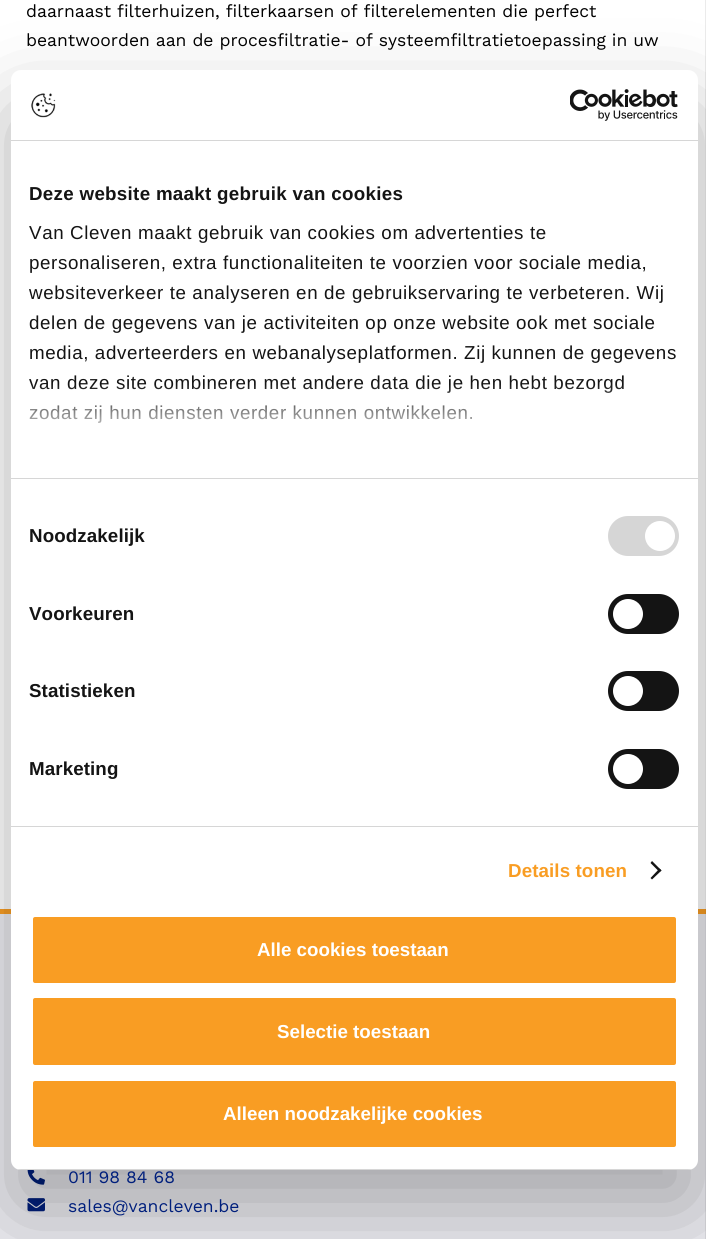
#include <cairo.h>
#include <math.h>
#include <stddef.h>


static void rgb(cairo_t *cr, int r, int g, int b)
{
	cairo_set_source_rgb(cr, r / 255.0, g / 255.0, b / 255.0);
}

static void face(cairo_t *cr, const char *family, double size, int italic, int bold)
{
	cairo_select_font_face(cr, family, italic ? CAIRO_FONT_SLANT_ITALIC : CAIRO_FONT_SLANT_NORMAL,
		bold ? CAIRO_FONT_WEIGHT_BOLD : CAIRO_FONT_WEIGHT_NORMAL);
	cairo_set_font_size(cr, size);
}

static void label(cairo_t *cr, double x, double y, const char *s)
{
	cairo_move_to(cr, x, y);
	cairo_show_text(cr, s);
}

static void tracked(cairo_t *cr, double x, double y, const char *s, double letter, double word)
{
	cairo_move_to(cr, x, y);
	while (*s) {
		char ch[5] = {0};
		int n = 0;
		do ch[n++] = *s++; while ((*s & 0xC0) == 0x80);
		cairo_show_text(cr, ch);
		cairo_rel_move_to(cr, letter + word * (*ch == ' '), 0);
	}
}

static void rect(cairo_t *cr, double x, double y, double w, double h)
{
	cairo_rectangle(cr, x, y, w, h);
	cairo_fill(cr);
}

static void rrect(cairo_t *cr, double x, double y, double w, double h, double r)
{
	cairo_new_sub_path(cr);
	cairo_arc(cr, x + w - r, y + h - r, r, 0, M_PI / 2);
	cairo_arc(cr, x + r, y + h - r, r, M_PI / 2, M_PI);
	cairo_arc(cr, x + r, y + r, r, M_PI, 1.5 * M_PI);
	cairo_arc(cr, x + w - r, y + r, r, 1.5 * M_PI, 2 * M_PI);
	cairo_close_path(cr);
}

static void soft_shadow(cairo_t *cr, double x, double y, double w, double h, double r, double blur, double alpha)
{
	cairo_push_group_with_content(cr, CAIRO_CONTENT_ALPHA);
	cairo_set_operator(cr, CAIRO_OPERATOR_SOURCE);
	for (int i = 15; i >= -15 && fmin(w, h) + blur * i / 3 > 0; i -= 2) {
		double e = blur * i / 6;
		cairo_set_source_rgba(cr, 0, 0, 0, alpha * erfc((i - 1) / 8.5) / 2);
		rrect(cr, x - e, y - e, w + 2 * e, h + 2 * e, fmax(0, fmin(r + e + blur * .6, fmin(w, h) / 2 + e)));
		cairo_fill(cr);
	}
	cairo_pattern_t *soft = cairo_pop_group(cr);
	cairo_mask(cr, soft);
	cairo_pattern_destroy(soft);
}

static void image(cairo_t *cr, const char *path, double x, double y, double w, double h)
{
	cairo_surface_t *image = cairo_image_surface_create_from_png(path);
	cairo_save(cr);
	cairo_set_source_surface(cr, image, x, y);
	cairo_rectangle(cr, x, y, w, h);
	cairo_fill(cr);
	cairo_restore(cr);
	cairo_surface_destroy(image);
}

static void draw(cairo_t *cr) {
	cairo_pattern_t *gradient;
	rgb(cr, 255, 255, 255);
	cairo_paint(cr);
	rgb(cr, 235, 235, 235);
	rect(cr, 705, 0, 1, 909);
	face(cr, "Work Sans", 17.5, 0, 0);
	rgb(cr, 0, 0, 0);
	label(cr, 26, 17, "daarnaast filterhuizen, filterkaarsen of filterelementen die perfect");
	label(cr, 26, 46, "beantwoorden aan de procesfiltratie- of systeemfiltratietoepassing in uw");
	rgb(cr, 236, 236, 241);
	rect(cr, 0, 914, 705, 325);
	rgb(cr, 217, 217, 222);
	rect(cr, 705, 909, 1, 330);
	rgb(cr, 249, 157, 35);
	rect(cr, 0, 909, 706, 5);
	rgb(cr, 229, 144, 32);
	rect(cr, 705, 909, 1, 5);
	image(cr, "image2.png", 27, 1170, 18, 15);
	image(cr, "image3.png", 27, 1198, 18, 14);
	rgb(cr, 0, 0, 0);
	soft_shadow(cr, 11, 110, 687, 1100, 10, 42.5, 0.3);
	rgb(cr, 255, 255, 255);
	rrect(cr, 11, 70, 687, 1100, 10);
	cairo_fill(cr);
	rgb(cr, 214, 214, 214);
	rect(cr, 11, 140, 687, 1);
	image(cr, "image0.png", 31, 93, 25, 25);
	image(cr, "image1.png", 570, 89, 108, 32);
	rect(cr, 11, 478, 687, 1);
	face(cr, "Liberation Sans", 18.75, 0, 1);
	rgb(cr, 20, 20, 20);
	tracked(cr, 29, 200, "Deze website maakt gebruik van cookies", 0.3, 0);
	face(cr, "Liberation Sans", 18.75, 0, 0);
	tracked(cr, 29, 239, "Van Cleven maakt gebruik van cookies om advertenties te", 0.62, 0);
	tracked(cr, 29, 269, "personaliseren, extra functionaliteiten te voorzien voor sociale media,", 0.62, 0);
	tracked(cr, 29, 299, "websiteverkeer te analyseren en de gebruikservaring te verbeteren. Wij", 0.62, 0);
	tracked(cr, 29, 329, "delen de gegevens van je activiteiten op onze website ook met sociale", 0.62, 0);
	tracked(cr, 29, 359, "media, adverteerders en webanalyseplatformen. Zij kunnen de gegevens", 0.62, 0);
	tracked(cr, 29, 389, "van deze site combineren met andere data die je hen hebt bezorgd", 0.62, 0);
	tracked(cr, 29, 419, "zodat zij hun diensten verder kunnen ontwikkelen.", 0.62, 0);
	gradient = cairo_pattern_create_linear(346, 478, 346, 384);
	cairo_pattern_add_color_stop_rgba(gradient, 0, 1, 1, 1, 1);
	cairo_pattern_add_color_stop_rgba(gradient, 0.5, 1, 1, 1, 0.8);
	cairo_pattern_add_color_stop_rgba(gradient, 1, 1, 1, 1, 0);
	cairo_set_source(cr, gradient);
	cairo_pattern_destroy(gradient);
	rect(cr, 29, 385, 595, 38);
	rgb(cr, 214, 214, 214);
	rect(cr, 11, 826, 687, 1);
	face(cr, "Liberation Sans", 18.75, 0, 1);
	rgb(cr, 20, 20, 20);
	tracked(cr, 29, 542, "Noodzakelijk", 0.1, 0);
	rgb(cr, 214, 214, 214);
	rrect(cr, 608, 516, 71, 40, 20);
	cairo_fill(cr);
	rgb(cr, 255, 255, 255);
	cairo_arc(cr, 660, 536, 15, 0, 2 * M_PI);
	cairo_fill(cr);
	rgb(cr, 20, 20, 20);
	tracked(cr, 29, 620, "Voorkeuren", 0.1, 0);
	rrect(cr, 608, 594, 71, 40, 20);
	cairo_fill(cr);
	rgb(cr, 255, 255, 255);
	cairo_arc(cr, 628, 614, 15, 0, 2 * M_PI);
	cairo_fill(cr);
	rgb(cr, 20, 20, 20);
	tracked(cr, 29, 697, "Statistieken", 0.1, 0);
	rrect(cr, 608, 671, 71, 40, 20);
	cairo_fill(cr);
	rgb(cr, 255, 255, 255);
	cairo_arc(cr, 628, 691, 15, 0, 2 * M_PI);
	cairo_fill(cr);
	rgb(cr, 20, 20, 20);
	tracked(cr, 29, 775, "Marketing", 0.1, 0);
	rrect(cr, 608, 749, 71, 40, 20);
	cairo_fill(cr);
	rgb(cr, 255, 255, 255);
	cairo_arc(cr, 628, 769, 15, 0, 2 * M_PI);
	cairo_fill(cr);
	rgb(cr, 249, 157, 35);
	tracked(cr, 508, 877, "Details tonen", 0.1, 0);
	rgb(cr, 20, 20, 20);
	cairo_new_path(cr);
	cairo_move_to(cr, 652, 861);
	cairo_line_to(cr, 661.5, 870.5);
	cairo_line_to(cr, 659.5, 872);
	cairo_line_to(cr, 650.5, 863);
	cairo_close_path(cr);
	cairo_fill(cr);
	cairo_new_path(cr);
	cairo_move_to(cr, 659.5, 868.5);
	cairo_line_to(cr, 661.5, 870.5);
	cairo_line_to(cr, 652, 879.5);
	cairo_line_to(cr, 650.5, 878);
	cairo_close_path(cr);
	cairo_fill(cr);
	cairo_save(cr);
	rrect(cr, 11, 70, 687, 1100, 10);
	cairo_clip(cr);
	rgb(cr, 214, 214, 214);
	rect(cr, 11, 1169, 687, 1);
	cairo_restore(cr);
	rgb(cr, 249, 157, 35);
	rrect(cr, 31.5, 915.5, 646, 69, 3.5);
	cairo_fill_preserve(cr);
	rgb(cr, 255, 255, 255);
	cairo_set_line_width(cr, 3);
	cairo_stroke(cr);
	label(cr, 257, 956, "Alle cookies toestaan");
	rgb(cr, 249, 157, 35);
	rrect(cr, 31.5, 996.5, 646, 70, 3.5);
	cairo_fill_preserve(cr);
	rgb(cr, 255, 255, 255);
	cairo_stroke(cr);
	label(cr, 277, 1038, "Selectie toestaan");
	rgb(cr, 249, 157, 35);
	rrect(cr, 31.5, 1079.5, 646, 69, 3.5);
	cairo_fill_preserve(cr);
	rgb(cr, 255, 255, 255);
	cairo_stroke(cr);
	label(cr, 223, 1120, "Alleen noodzakelijke cookies");
	face(cr, "Work Sans", 17.5, 0, 0);
	rgb(cr, 0, 31, 124);
	label(cr, 68, 1183, "011 98 84 68");
	label(cr, 68, 1212, "sales@vancleven.be");
}

int main(void) {
	cairo_surface_t *surface = cairo_image_surface_create(CAIRO_FORMAT_RGB24, 706, 1239);
	cairo_t *cr = cairo_create(surface);
	cairo_font_options_t *options = cairo_font_options_create();
	cairo_font_options_set_hint_metrics(options, CAIRO_HINT_METRICS_OFF);
	cairo_font_options_set_hint_style(options, CAIRO_HINT_STYLE_NONE);
	cairo_set_font_options(cr, options);
	cairo_set_miter_limit(cr, 4);
	draw(cr);
	cairo_surface_write_to_png(surface, "render.png");
	cairo_font_options_destroy(options);
	cairo_destroy(cr);
	cairo_surface_destroy(surface);
	return 0;
}
